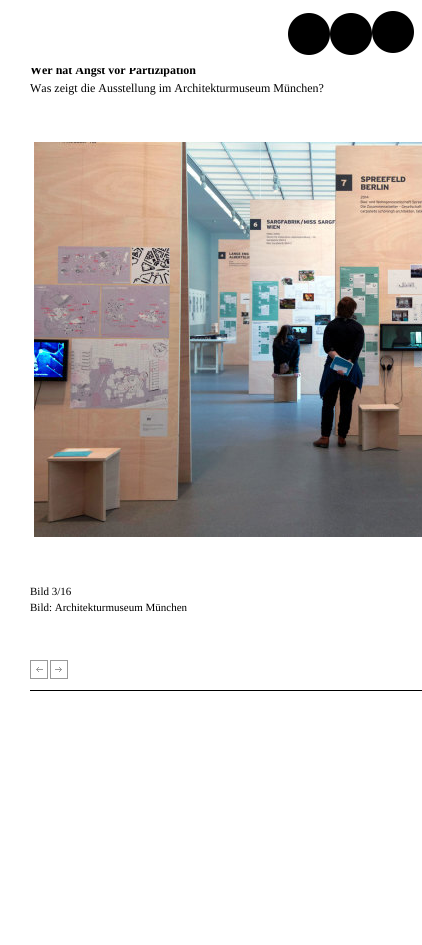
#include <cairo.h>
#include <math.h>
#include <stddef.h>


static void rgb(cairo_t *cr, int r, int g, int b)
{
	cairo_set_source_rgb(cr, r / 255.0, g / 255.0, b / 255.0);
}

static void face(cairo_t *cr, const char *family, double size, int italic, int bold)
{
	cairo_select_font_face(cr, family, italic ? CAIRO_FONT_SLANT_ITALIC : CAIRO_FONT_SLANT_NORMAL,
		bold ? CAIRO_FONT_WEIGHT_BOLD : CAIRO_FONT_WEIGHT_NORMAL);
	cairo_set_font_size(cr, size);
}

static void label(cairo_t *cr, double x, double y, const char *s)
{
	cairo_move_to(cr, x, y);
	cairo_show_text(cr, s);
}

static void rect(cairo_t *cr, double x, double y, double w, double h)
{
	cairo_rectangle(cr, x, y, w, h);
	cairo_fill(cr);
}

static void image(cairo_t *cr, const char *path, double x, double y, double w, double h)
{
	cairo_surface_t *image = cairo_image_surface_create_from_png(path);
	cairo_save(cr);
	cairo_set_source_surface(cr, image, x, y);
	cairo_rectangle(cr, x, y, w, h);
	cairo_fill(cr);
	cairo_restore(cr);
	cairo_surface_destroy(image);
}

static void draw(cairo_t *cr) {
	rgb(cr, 255, 255, 255);
	cairo_paint(cr);
	face(cr, "Liberation Serif", 12, 0, 1);
	rgb(cr, 0, 0, 0);
	label(cr, 30, 74, "Wer hat Angst vor Partizipation");
	rgb(cr, 255, 255, 255);
	rect(cr, 30, 65, 153, 3);
	rgb(cr, 0, 0, 0);
	cairo_new_path(cr);
	cairo_arc(cr, 309, 34, 21, 0, 2 * M_PI);
	cairo_fill(cr);
	cairo_arc(cr, 351, 34, 21, 0, 2 * M_PI);
	cairo_fill(cr);
	cairo_arc(cr, 393, 32, 21, 0, 2 * M_PI);
	cairo_fill(cr);
	face(cr, "Liberation Serif", 12, 0, 0);
	label(cr, 30, 92, "Was zeigt die Ausstellung im Architekturmuseum München?");
	image(cr, "image0.png", 34, 142, 388, 395);
	face(cr, "Liberation Serif", 11, 0, 0);
	label(cr, 30, 595, "Bild 3/16");
	label(cr, 30, 611, "Bild: Architekturmuseum München");
	image(cr, "image1.png", 30, 660, 18, 19);
	image(cr, "image2.png", 50, 660, 18, 19);
	rect(cr, 30, 690, 392, 1);
}

int main(void) {
	cairo_surface_t *surface = cairo_image_surface_create(CAIRO_FORMAT_RGB24, 422, 945);
	cairo_t *cr = cairo_create(surface);
	cairo_font_options_t *options = cairo_font_options_create();
	cairo_font_options_set_hint_metrics(options, CAIRO_HINT_METRICS_OFF);
	cairo_font_options_set_hint_style(options, CAIRO_HINT_STYLE_NONE);
	cairo_set_font_options(cr, options);
	cairo_set_miter_limit(cr, 4);
	draw(cr);
	cairo_surface_write_to_png(surface, "render.png");
	cairo_font_options_destroy(options);
	cairo_destroy(cr);
	cairo_surface_destroy(surface);
	return 0;
}
